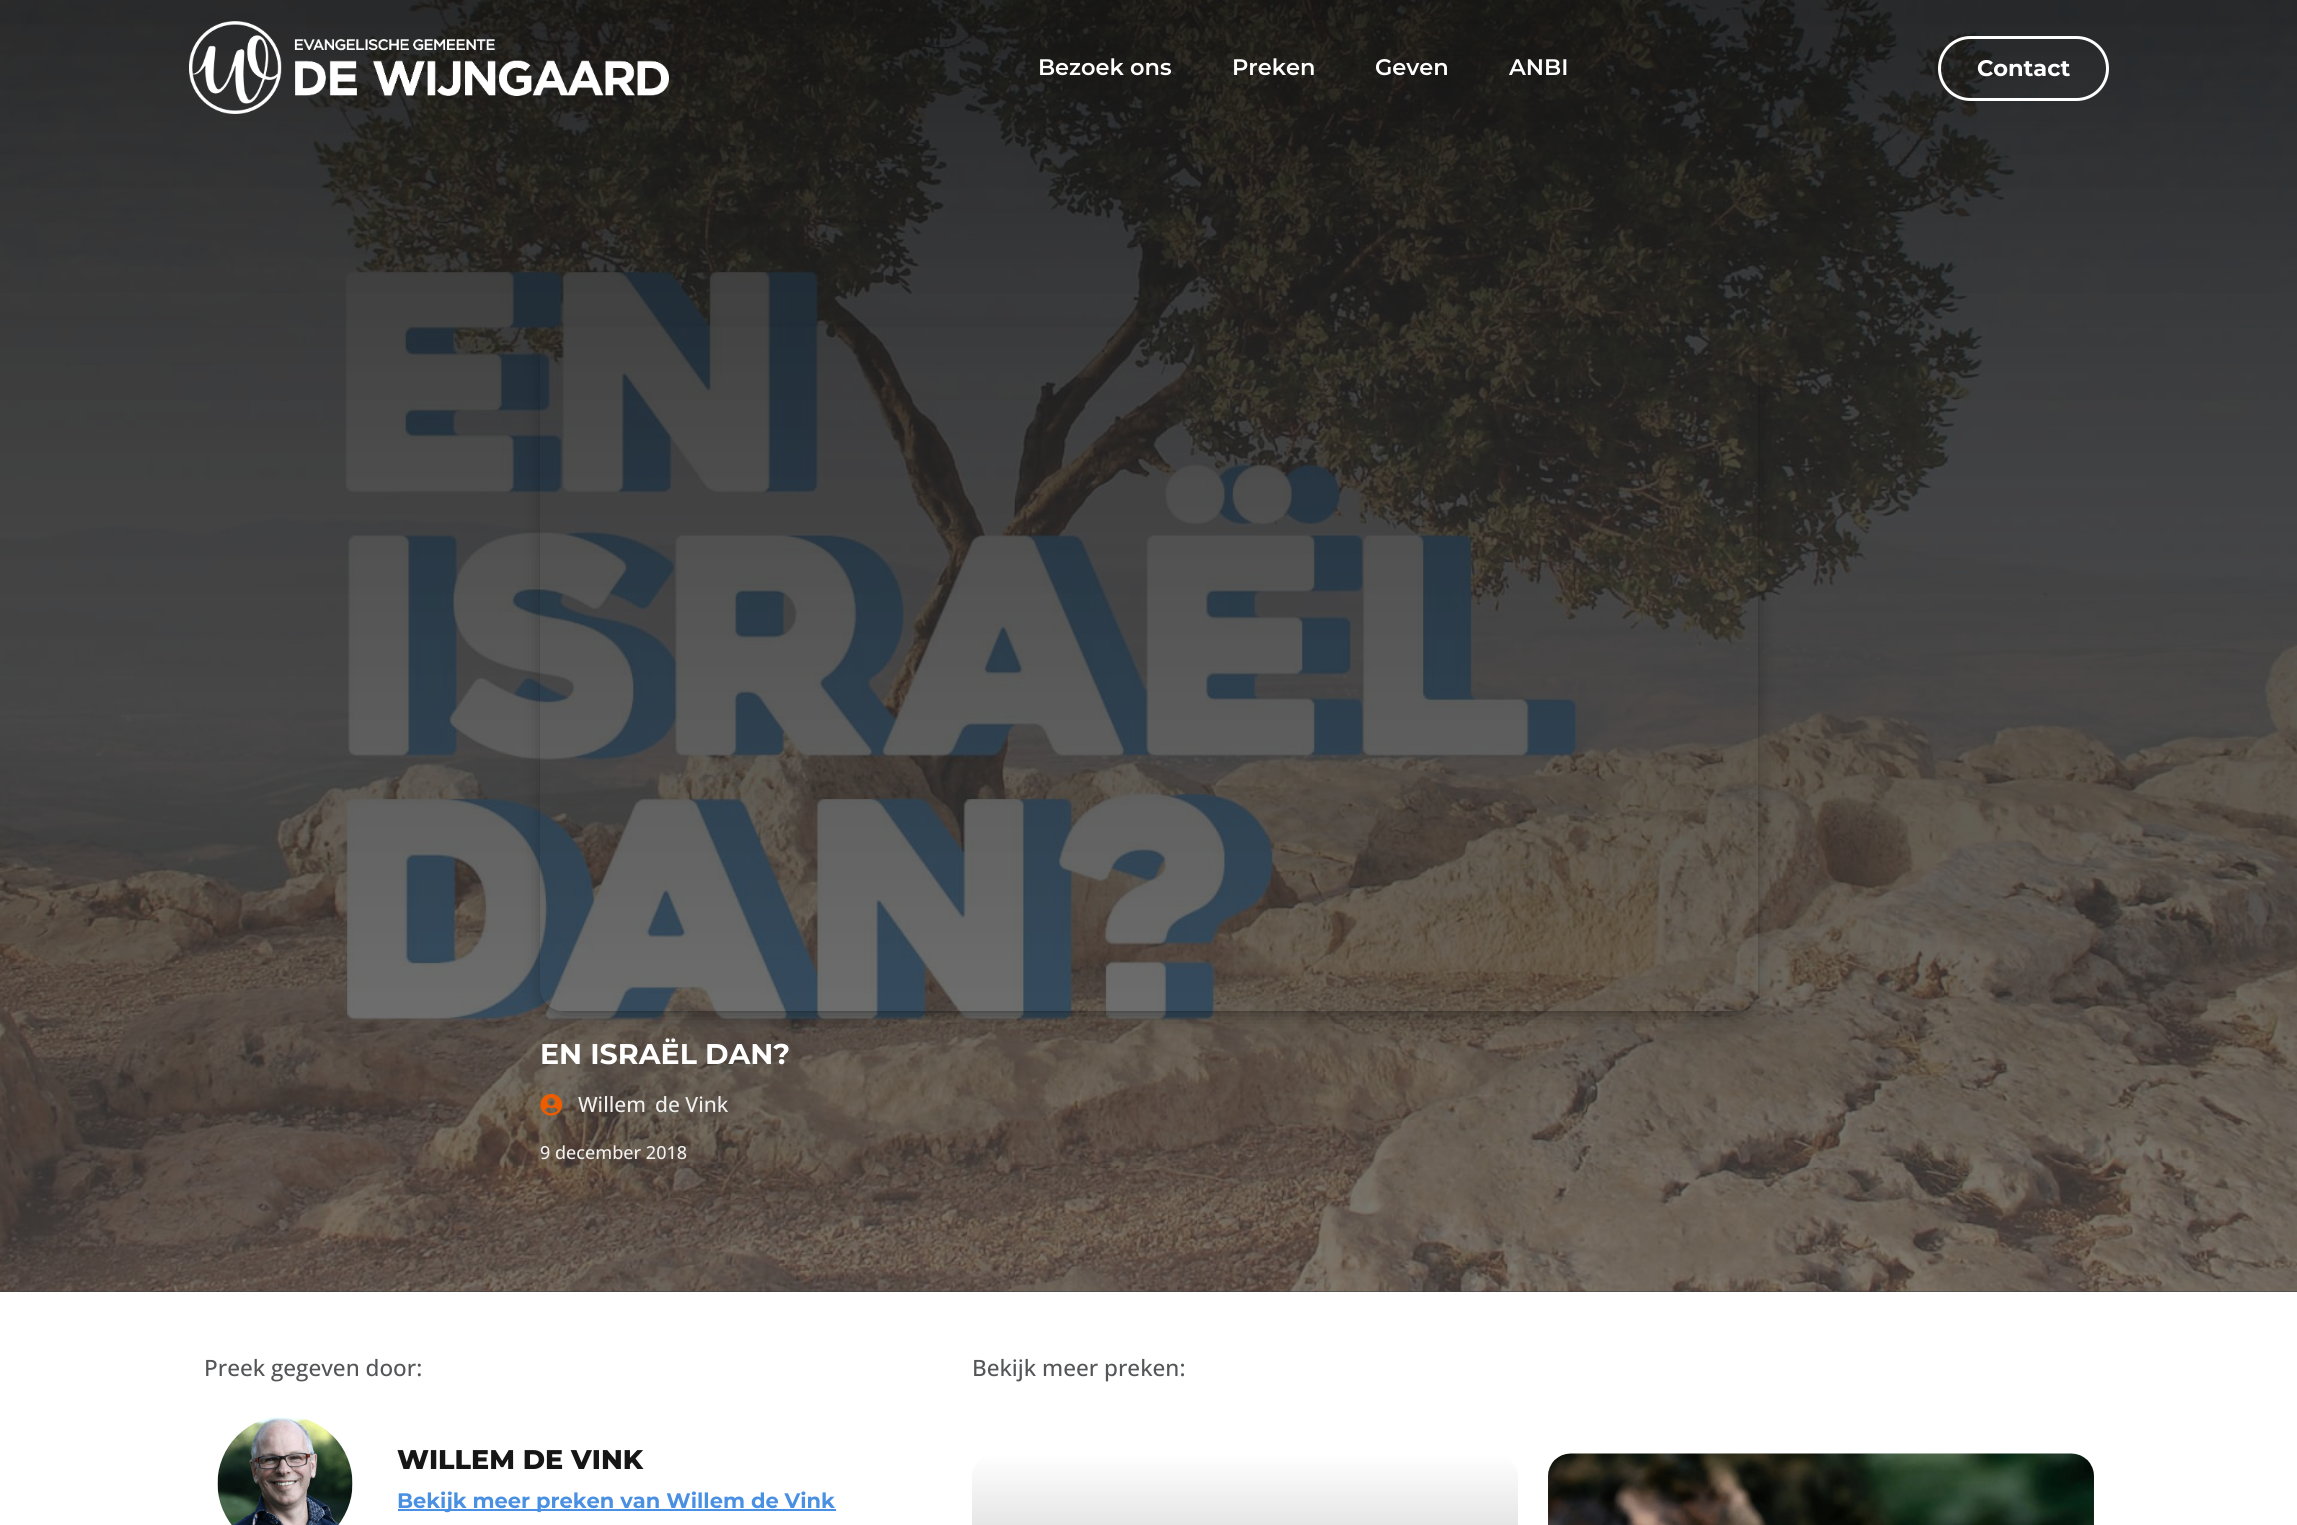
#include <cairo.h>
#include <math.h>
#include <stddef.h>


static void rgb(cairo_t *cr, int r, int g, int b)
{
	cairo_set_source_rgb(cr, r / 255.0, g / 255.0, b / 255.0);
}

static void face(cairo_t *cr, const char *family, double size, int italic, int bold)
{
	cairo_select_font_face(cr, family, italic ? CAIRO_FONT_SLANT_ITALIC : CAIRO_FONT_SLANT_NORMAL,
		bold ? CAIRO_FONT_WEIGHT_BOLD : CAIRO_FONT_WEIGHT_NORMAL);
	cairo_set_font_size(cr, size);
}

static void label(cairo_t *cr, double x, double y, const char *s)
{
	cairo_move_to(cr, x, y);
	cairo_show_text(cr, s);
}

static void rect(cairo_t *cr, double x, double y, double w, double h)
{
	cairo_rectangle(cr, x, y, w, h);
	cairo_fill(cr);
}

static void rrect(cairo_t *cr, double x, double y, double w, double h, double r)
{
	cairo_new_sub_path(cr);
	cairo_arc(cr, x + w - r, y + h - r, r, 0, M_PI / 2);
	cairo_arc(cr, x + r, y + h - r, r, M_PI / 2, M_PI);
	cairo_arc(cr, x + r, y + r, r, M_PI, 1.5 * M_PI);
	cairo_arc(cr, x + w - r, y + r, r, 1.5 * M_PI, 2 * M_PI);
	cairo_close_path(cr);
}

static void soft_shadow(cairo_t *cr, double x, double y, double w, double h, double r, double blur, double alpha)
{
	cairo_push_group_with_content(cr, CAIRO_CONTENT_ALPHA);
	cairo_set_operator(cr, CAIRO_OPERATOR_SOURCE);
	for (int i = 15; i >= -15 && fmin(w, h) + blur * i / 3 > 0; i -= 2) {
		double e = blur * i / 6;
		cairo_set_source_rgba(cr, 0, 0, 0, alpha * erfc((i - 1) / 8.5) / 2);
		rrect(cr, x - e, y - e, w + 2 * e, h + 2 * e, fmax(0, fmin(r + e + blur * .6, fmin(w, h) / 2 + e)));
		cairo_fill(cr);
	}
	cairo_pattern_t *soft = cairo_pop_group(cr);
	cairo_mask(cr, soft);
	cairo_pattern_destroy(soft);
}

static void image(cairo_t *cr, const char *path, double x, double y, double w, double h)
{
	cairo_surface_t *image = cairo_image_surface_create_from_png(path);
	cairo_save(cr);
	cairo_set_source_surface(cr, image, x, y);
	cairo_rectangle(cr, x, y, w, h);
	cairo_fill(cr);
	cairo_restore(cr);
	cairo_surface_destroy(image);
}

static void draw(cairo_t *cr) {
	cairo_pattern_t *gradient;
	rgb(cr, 255, 255, 255);
	cairo_paint(cr);
	rgb(cr, 37, 37, 37);
	rect(cr, 0, 1291, 2297, 1);
	image(cr, "image1.png", 0, 0, 2297, 1292);
	gradient = cairo_pattern_create_linear(1149, 0, 1149, 1292);
	cairo_pattern_add_color_stop_rgba(gradient, 0, 0.086, 0.086, 0.086, 0.9);
	cairo_pattern_add_color_stop_rgba(gradient, 1, 0.282, 0.282, 0.282, 0.71);
	cairo_set_source(cr, gradient);
	cairo_pattern_destroy(gradient);
	rect(cr, 0, 0, 2297, 1292);
	image(cr, "image0.png", 189, 21, 480, 93);
	face(cr, "Montserrat SemiBold", 22.5, 0, 0);
	rgb(cr, 255, 255, 255);
	label(cr, 1038, 75, "Bezoek ons");
	label(cr, 1232, 75, "Preken");
	label(cr, 1375, 75, "Geven");
	label(cr, 1509, 75, "ANBI");
	rrect(cr, 1939.5, 37.5, 168, 62, 31);
	cairo_set_line_width(cr, 3);
	cairo_stroke(cr);
	face(cr, "Montserrat", 22.5, 0, 1);
	label(cr, 1977, 76, "Contact");
	cairo_save(cr);
	cairo_set_fill_rule(cr, CAIRO_FILL_RULE_EVEN_ODD);
	cairo_new_path(cr);
	cairo_move_to(cr, 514, 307);
	cairo_line_to(cr, 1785, 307);
	cairo_line_to(cr, 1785, 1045);
	cairo_line_to(cr, 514, 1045);
	cairo_close_path(cr);
	cairo_move_to(cr, 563, 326);
	cairo_line_to(cr, 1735, 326);
	cairo_curve_to(cr, 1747.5, 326, 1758, 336.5, 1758, 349);
	cairo_line_to(cr, 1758, 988);
	cairo_curve_to(cr, 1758, 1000.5, 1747.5, 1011, 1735, 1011);
	cairo_line_to(cr, 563, 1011);
	cairo_curve_to(cr, 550.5, 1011, 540, 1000.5, 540, 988);
	cairo_line_to(cr, 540, 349);
	cairo_curve_to(cr, 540, 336.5, 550.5, 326, 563, 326);
	cairo_close_path(cr);
	cairo_clip(cr);
	rgb(cr, 0, 0, 0);
	soft_shadow(cr, 548, 341, 1203, 670, 15, 11, 0.56);
	cairo_restore(cr);
	face(cr, "Montserrat", 28.5, 0, 1);
	label(cr, 540, 1064, "EN ISRAËL DAN?");
	image(cr, "image2.png", 540, 1094, 23, 22);
	face(cr, "Open Sans Medium", 21, 0, 0);
	rgb(cr, 240, 240, 240);
	label(cr, 578, 1112, "Willem");
	label(cr, 655, 1112, "de Vink");
	face(cr, "Open Sans Medium", 18, 0, 0);
	label(cr, 540, 1159, "9 december 2018");
	face(cr, "Open Sans Medium", 22.5, 0, 0);
	rgb(cr, 83, 85, 87);
	label(cr, 204, 1376, "Preek gegeven door:");
	image(cr, "image3.png", 217, 1417, 136, 108);
	face(cr, "Montserrat ExtraBold", 27, 0, 0);
	rgb(cr, 22, 22, 22);
	label(cr, 397, 1469, "WILLEM DE VINK");
	rgb(cr, 74, 144, 226);
	rect(cr, 398, 1509, 438, 2);
	face(cr, "Montserrat", 21, 0, 1);
	label(cr, 397, 1508, "Bekijk meer preken van Willem de Vink");
	face(cr, "Open Sans Medium", 22.5, 0, 0);
	rgb(cr, 83, 85, 87);
	label(cr, 972, 1376, "Bekijk meer preken:");
	gradient = cairo_pattern_create_linear(1245, 1454, 1245, 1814);
	cairo_pattern_add_color_stop_rgba(gradient, 0, 1, 1, 1, 1);
	cairo_pattern_add_color_stop_rgba(gradient, 1, 0.502, 0.502, 0.502, 1);
	cairo_set_source(cr, gradient);
	cairo_pattern_destroy(gradient);
	rrect(cr, 972, 1454, 546, 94, 23);
	cairo_fill(cr);
	image(cr, "image4.png", 1548, 1453, 546, 72);
	gradient = cairo_pattern_create_linear(1821, 1454, 1821, 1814);
	cairo_pattern_add_color_stop_rgba(gradient, 0, 0, 0, 0, 0);
	cairo_pattern_add_color_stop_rgba(gradient, 1, 0, 0, 0, 0.5);
	cairo_set_source(cr, gradient);
	cairo_pattern_destroy(gradient);
	rect(cr, 1548, 1470, 546, 55);
}

int main(void) {
	cairo_surface_t *surface = cairo_image_surface_create(CAIRO_FORMAT_RGB24, 2297, 1525);
	cairo_t *cr = cairo_create(surface);
	cairo_font_options_t *options = cairo_font_options_create();
	cairo_font_options_set_hint_metrics(options, CAIRO_HINT_METRICS_OFF);
	cairo_font_options_set_hint_style(options, CAIRO_HINT_STYLE_NONE);
	cairo_set_font_options(cr, options);
	cairo_set_miter_limit(cr, 4);
	draw(cr);
	cairo_surface_write_to_png(surface, "render.png");
	cairo_font_options_destroy(options);
	cairo_destroy(cr);
	cairo_surface_destroy(surface);
	return 0;
}
